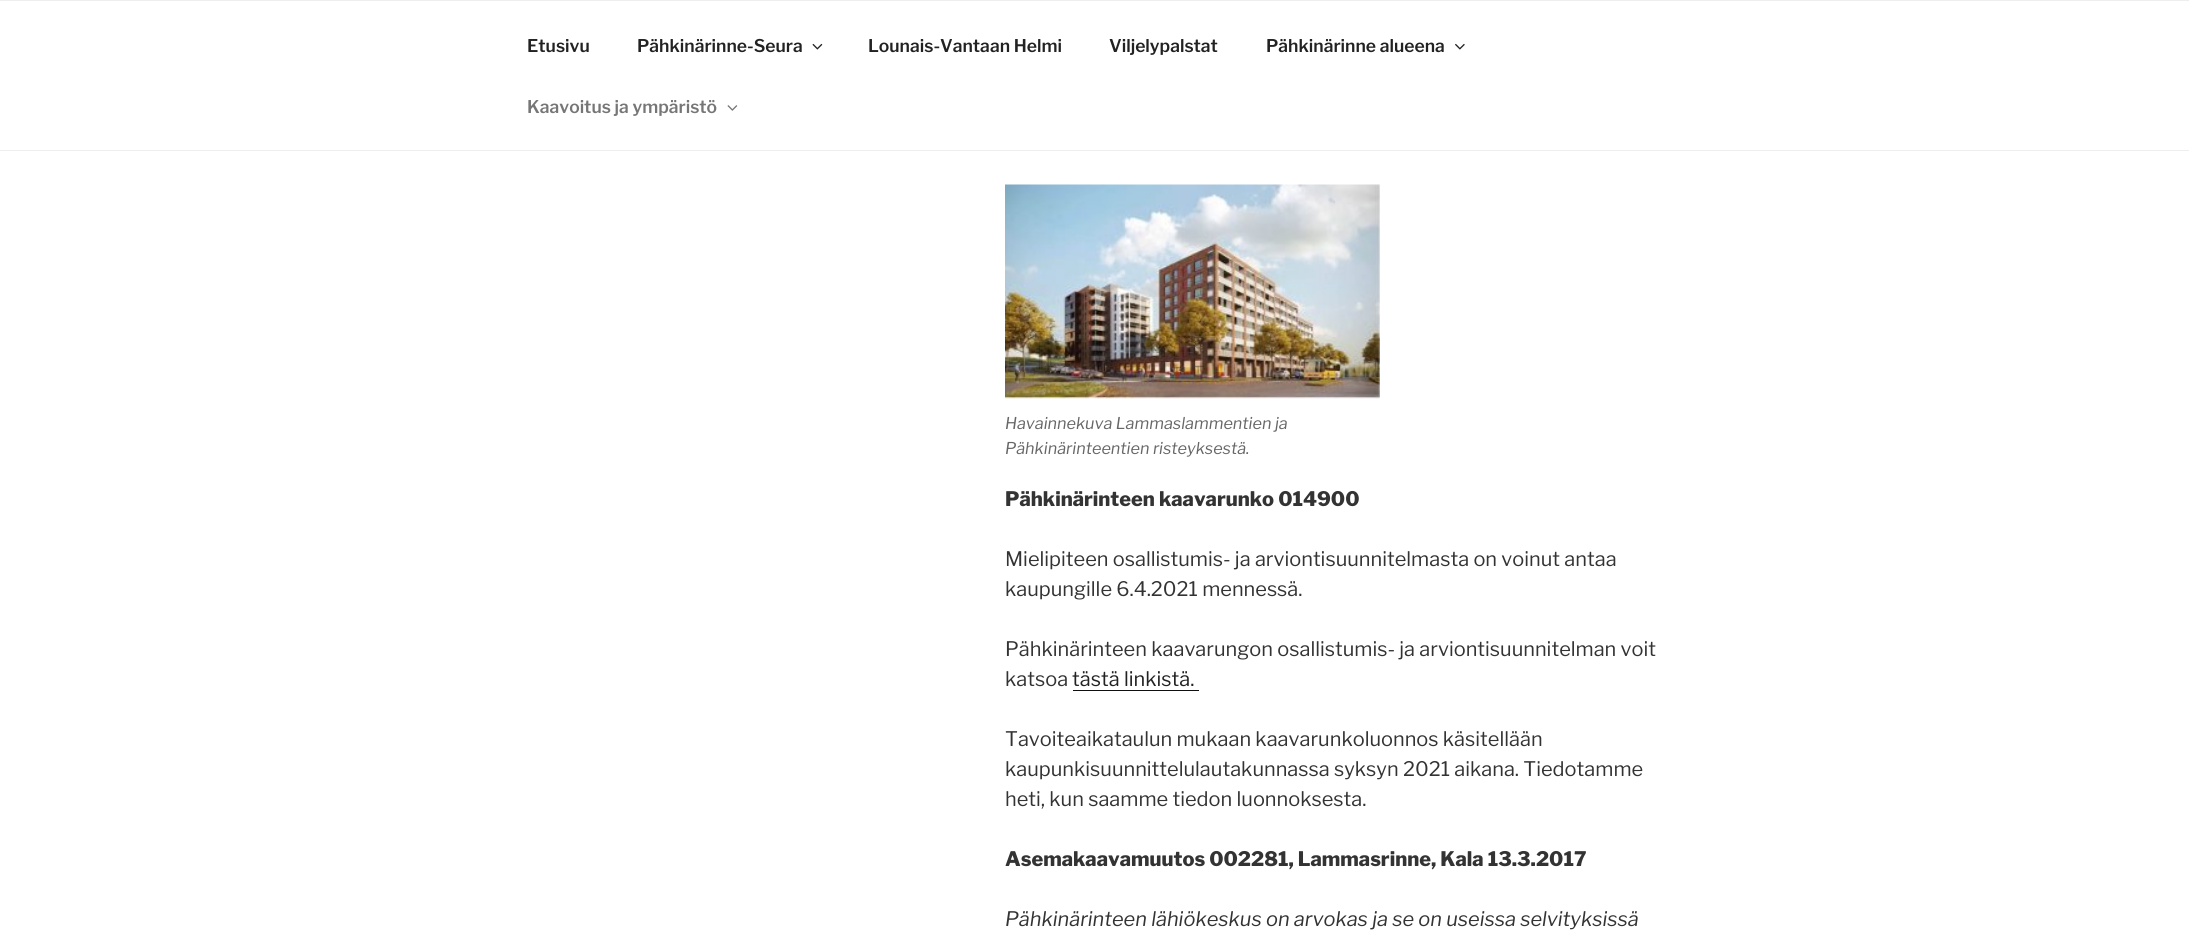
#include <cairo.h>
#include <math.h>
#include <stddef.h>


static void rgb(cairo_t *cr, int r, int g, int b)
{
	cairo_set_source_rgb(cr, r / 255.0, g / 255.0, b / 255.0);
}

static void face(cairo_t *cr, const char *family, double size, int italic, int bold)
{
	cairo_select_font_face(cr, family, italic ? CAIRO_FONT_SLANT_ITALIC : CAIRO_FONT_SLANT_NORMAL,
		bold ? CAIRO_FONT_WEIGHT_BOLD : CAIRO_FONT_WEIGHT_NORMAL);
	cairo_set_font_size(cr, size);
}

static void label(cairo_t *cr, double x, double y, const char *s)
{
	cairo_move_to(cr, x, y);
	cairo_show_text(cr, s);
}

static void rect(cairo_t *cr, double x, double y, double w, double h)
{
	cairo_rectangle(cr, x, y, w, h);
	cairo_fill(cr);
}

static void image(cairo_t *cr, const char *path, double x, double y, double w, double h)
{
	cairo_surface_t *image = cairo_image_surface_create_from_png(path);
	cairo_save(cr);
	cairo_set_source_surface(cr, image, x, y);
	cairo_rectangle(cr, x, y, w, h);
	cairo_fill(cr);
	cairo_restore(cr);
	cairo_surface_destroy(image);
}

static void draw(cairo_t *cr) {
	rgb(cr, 255, 255, 255);
	cairo_paint(cr);
	rgb(cr, 238, 238, 238);
	rect(cr, 0, 0, 2189, 1);
	rect(cr, 0, 150, 2189, 1);
	face(cr, "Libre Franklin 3 Thin", 17.5, 0, 0);
	rgb(cr, 34, 34, 34);
	label(cr, 527, 52, "Etusivu");
	label(cr, 637, 52, "Pähkinärinne-Seura");
	image(cr, "image0.png", 812, 43, 11, 7);
	label(cr, 868, 52, "Lounais-Vantaan Helmi");
	label(cr, 1109, 52, "Viljelypalstat");
	label(cr, 1266, 52, "Pähkinärinne alueena");
	image(cr, "image1.png", 1455, 43, 10, 7);
	rgb(cr, 118, 118, 118);
	label(cr, 527, 113, "Kaavoitus ja ympäristö");
	image(cr, "image2.png", 727, 105, 11, 6);
	image(cr, "image3.png", 1005, 184, 375, 215);
	face(cr, "Libre Franklin Thin", 16.25, 1, 0);
	rgb(cr, 102, 102, 102);
	label(cr, 1005, 429, "Havainnekuva Lammaslammentien ja");
	label(cr, 1005, 454, "Pähkinärinteentien risteyksestä.");
	face(cr, "Libre Franklin Thin", 20, 0, 0);
	rgb(cr, 51, 51, 51);
	label(cr, 1005, 506, "Pähkinärinteen kaavarunko 014900");
	face(cr, "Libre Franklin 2 Thin", 20, 0, 0);
	label(cr, 1005, 566, "Mielipiteen osallistumis- ja arviontisuunnitelmasta on voinut antaa");
	label(cr, 1005, 596, "kaupungille 6.4.2021 mennessä.");
	label(cr, 1005, 656, "Pähkinärinteen kaavarungon osallistumis- ja arviontisuunnitelman voit");
	label(cr, 1005, 686, "katsoa");
	rgb(cr, 34, 34, 34);
	label(cr, 1072, 686, "tästä linkistä.");
	rgb(cr, 15, 15, 15);
	rect(cr, 1073, 690, 126, 1);
	rgb(cr, 51, 51, 51);
	label(cr, 1005, 746, "Tavoiteaikataulun mukaan kaavarunkoluonnos käsitellään");
	label(cr, 1005, 776, "kaupunkisuunnittelulautakunnassa syksyn 2021 aikana. Tiedotamme");
	label(cr, 1005, 806, "heti, kun saamme tiedon luonnoksesta.");
	face(cr, "Libre Franklin Thin", 20, 0, 0);
	label(cr, 1005, 866, "Asemakaavamuutos 002281, Lammasrinne, Kala 13.3.2017");
	face(cr, "Libre Franklin Thin", 20, 1, 0);
	label(cr, 1005, 926, "Pähkinärinteen lähiökeskus on arvokas ja se on useissa selvityksissä");
}

int main(void) {
	cairo_surface_t *surface = cairo_image_surface_create(CAIRO_FORMAT_RGB24, 2189, 930);
	cairo_t *cr = cairo_create(surface);
	cairo_font_options_t *options = cairo_font_options_create();
	cairo_font_options_set_hint_metrics(options, CAIRO_HINT_METRICS_OFF);
	cairo_font_options_set_hint_style(options, CAIRO_HINT_STYLE_NONE);
	cairo_set_font_options(cr, options);
	cairo_set_miter_limit(cr, 4);
	draw(cr);
	cairo_surface_write_to_png(surface, "render.png");
	cairo_font_options_destroy(options);
	cairo_destroy(cr);
	cairo_surface_destroy(surface);
	return 0;
}
